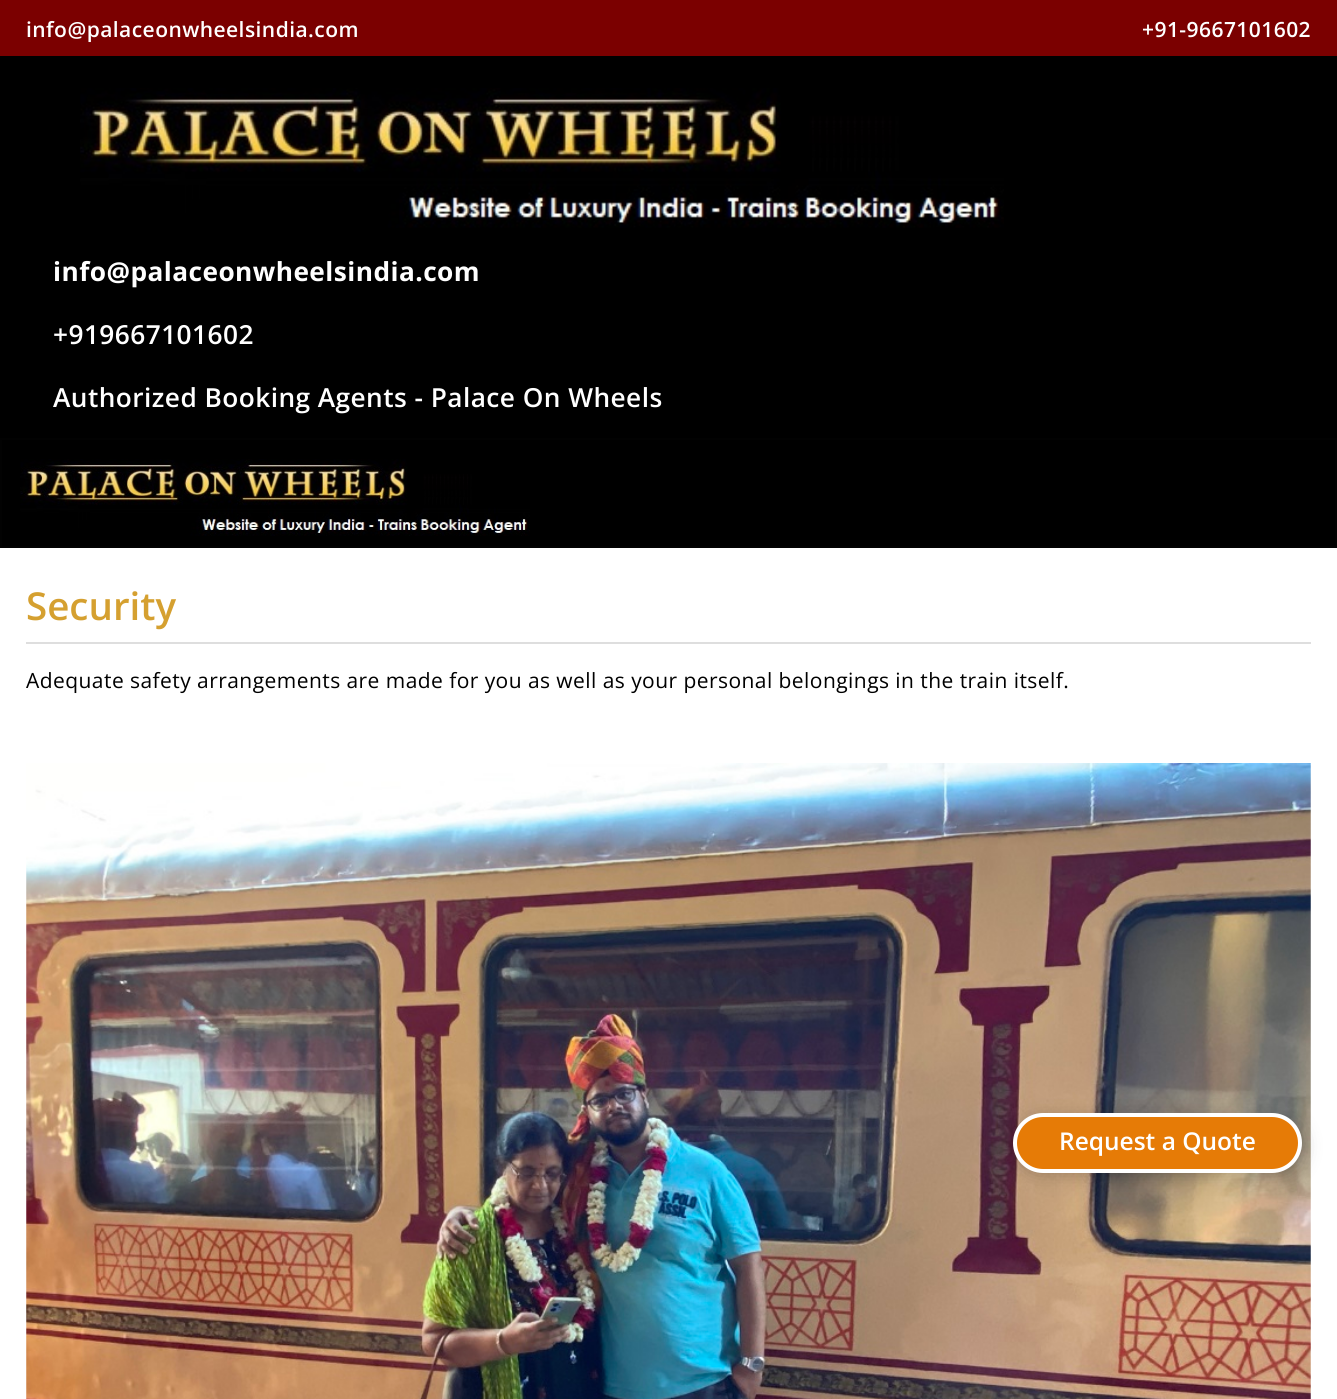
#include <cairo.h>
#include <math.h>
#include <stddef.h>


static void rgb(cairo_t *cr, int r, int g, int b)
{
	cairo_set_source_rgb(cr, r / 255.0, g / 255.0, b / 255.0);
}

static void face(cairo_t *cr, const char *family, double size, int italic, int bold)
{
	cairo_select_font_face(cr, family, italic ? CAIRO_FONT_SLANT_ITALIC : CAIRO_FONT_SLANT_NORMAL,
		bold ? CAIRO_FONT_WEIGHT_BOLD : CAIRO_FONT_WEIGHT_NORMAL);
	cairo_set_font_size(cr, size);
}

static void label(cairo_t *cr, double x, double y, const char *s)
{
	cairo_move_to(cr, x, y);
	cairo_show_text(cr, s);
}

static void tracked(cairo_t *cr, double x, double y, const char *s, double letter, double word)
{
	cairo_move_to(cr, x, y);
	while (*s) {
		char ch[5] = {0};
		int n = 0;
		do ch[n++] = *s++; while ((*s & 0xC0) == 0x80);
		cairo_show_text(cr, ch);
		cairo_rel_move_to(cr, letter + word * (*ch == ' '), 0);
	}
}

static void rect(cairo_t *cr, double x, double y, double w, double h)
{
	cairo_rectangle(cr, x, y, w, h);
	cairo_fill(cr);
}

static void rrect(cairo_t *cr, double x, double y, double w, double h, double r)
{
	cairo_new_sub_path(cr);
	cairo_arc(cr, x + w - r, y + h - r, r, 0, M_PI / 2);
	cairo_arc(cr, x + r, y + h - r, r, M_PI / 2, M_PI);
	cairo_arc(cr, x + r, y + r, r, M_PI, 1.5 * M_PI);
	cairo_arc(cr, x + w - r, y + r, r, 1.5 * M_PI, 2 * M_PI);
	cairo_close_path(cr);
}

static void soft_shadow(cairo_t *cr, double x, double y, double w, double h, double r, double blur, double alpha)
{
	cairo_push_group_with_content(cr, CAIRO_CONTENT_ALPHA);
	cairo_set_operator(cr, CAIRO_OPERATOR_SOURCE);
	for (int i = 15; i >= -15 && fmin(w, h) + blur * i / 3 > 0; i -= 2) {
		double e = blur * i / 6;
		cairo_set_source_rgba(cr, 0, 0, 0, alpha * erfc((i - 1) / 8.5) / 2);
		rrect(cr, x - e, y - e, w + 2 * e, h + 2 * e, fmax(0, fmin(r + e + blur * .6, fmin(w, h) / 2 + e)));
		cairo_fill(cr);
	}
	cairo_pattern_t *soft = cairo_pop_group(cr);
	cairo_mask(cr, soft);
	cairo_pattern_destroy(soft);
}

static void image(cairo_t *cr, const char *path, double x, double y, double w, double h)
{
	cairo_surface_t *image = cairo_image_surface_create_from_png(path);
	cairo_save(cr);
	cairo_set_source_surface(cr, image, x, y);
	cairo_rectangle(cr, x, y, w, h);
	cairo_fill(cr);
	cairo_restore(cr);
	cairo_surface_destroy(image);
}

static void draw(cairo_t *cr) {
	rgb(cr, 255, 255, 255);
	cairo_paint(cr);
	rgb(cr, 123, 0, 0);
	rect(cr, 0, 0, 1337, 56);
	face(cr, "Open Sans SemiBold", 21, 0, 0);
	rgb(cr, 255, 255, 255);
	tracked(cr, 26, 37, "info@palaceonwheelsindia.com", 0.44, 0);
	tracked(cr, 1142, 37, "+91-9667101602", 0.44, 0);
	rgb(cr, 0, 0, 0);
	rect(cr, 0, 56, 1337, 382);
	image(cr, "image0.png", 80, 88, 924, 140);
	face(cr, "Open Sans", 26.25, 0, 1);
	rgb(cr, 255, 255, 255);
	tracked(cr, 53, 281, "info@palaceonwheelsindia.com", 0.44, 0);
	face(cr, "Open Sans SemiBold", 26.25, 0, 0);
	tracked(cr, 53, 344, "+919667101602", 0.44, 0);
	tracked(cr, 53, 407, "Authorized Booking Agents - Palace On Wheels", 0.44, 0);
	rgb(cr, 0, 0, 0);
	cairo_rectangle(cr, 1, 439, 1335, 108);
	cairo_fill_preserve(cr);
	rgb(cr, 2, 2, 2);
	cairo_stroke(cr);
	image(cr, "image1.png", 20, 459, 510, 77);
	face(cr, "Open Sans SemiBold", 38.5, 0, 0);
	rgb(cr, 213, 160, 48);
	label(cr, 26, 620, "Security");
	rgb(cr, 222, 222, 222);
	rect(cr, 26, 642, 1285, 2);
	face(cr, "Open Sans", 21, 0, 0);
	rgb(cr, 0, 0, 0);
	tracked(cr, 26, 688, "Adequate safety arrangements are made for you as well as your personal belongings in the train itself.", 0.44, 0);
	image(cr, "image2.png", 26, 763, 1285, 636);
	rgb(cr, 0, 0, 0);
	soft_shadow(cr, 1015, 1117, 289, 59, 29.5, 9, 0.2);
	rgb(cr, 230, 123, 6);
	rrect(cr, 1015, 1115, 285, 56, 28);
	cairo_fill_preserve(cr);
	rgb(cr, 255, 255, 255);
	cairo_set_line_width(cr, 4);
	cairo_stroke(cr);
	face(cr, "Open Sans SemiBold", 24.5, 0, 0);
	label(cr, 1059, 1150, "Request a Quote");
}

int main(void) {
	cairo_surface_t *surface = cairo_image_surface_create(CAIRO_FORMAT_RGB24, 1337, 1399);
	cairo_t *cr = cairo_create(surface);
	cairo_font_options_t *options = cairo_font_options_create();
	cairo_font_options_set_hint_metrics(options, CAIRO_HINT_METRICS_OFF);
	cairo_font_options_set_hint_style(options, CAIRO_HINT_STYLE_NONE);
	cairo_set_font_options(cr, options);
	cairo_set_miter_limit(cr, 4);
	draw(cr);
	cairo_surface_write_to_png(surface, "render.png");
	cairo_font_options_destroy(options);
	cairo_destroy(cr);
	cairo_surface_destroy(surface);
	return 0;
}
